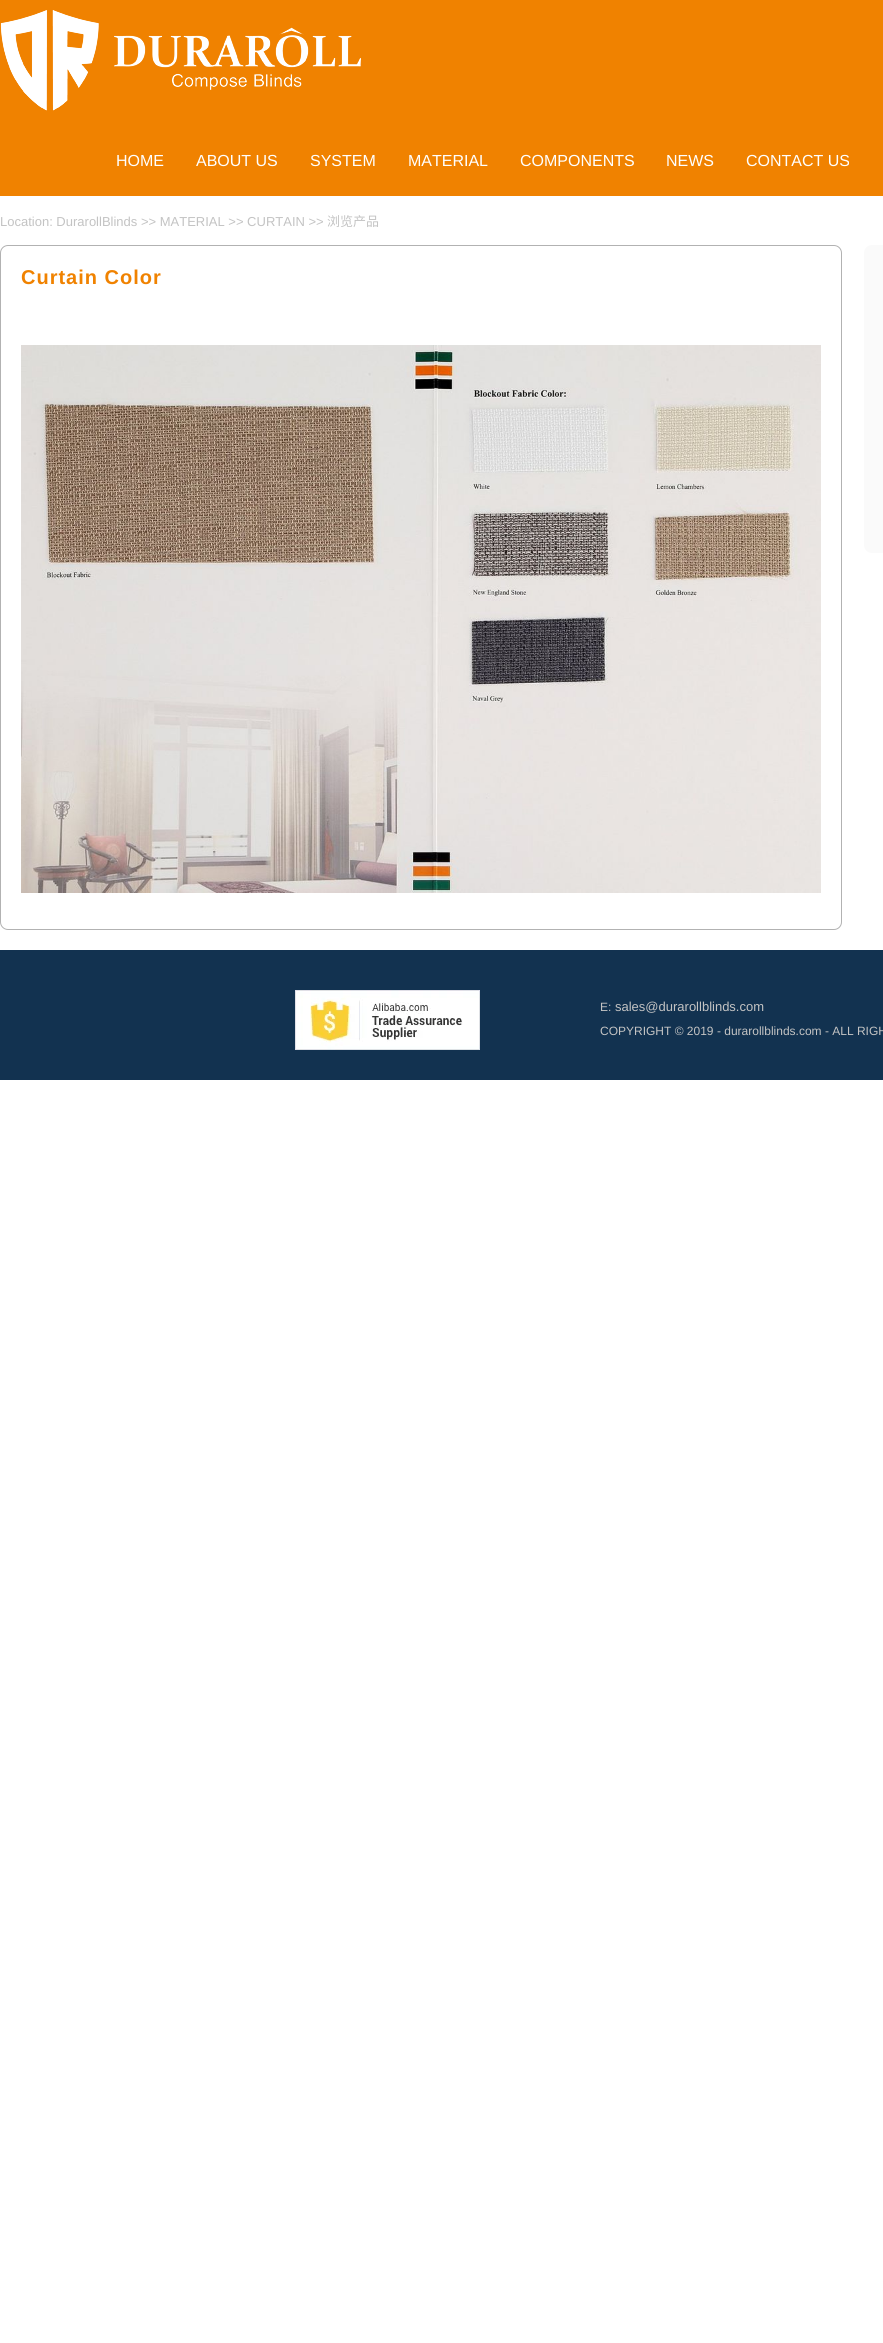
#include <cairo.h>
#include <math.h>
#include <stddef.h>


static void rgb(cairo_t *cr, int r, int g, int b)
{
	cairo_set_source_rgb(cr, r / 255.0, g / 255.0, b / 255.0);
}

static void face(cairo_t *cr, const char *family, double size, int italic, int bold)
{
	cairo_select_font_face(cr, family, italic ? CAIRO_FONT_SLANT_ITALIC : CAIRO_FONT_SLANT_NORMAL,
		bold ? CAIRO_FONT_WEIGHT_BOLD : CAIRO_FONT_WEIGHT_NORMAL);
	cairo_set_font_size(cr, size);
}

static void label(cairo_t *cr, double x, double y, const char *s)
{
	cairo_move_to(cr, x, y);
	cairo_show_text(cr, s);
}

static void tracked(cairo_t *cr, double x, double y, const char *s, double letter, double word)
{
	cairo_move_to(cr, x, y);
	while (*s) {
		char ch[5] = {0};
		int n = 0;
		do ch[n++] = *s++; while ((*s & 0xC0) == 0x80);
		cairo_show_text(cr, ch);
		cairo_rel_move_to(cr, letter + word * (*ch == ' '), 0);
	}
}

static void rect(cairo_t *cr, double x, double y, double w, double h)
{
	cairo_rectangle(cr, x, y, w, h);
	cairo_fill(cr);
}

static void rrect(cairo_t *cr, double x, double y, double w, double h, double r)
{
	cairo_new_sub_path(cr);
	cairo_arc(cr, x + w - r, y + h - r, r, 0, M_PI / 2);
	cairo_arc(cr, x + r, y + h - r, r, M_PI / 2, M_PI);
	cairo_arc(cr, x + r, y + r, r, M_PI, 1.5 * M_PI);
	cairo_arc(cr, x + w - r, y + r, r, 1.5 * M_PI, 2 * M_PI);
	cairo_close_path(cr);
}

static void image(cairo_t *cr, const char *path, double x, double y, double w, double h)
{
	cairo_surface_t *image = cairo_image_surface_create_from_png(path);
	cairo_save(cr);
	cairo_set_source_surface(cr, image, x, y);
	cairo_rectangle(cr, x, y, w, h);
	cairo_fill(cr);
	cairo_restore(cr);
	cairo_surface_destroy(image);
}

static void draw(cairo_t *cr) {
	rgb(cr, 255, 255, 255);
	cairo_paint(cr);
	rgb(cr, 240, 130, 0);
	rect(cr, 0, 0, 883, 196);
	image(cr, "image0.png", 0, 10, 361, 101);
	face(cr, "Liberation Sans", 16, 0, 0);
	rgb(cr, 255, 255, 255);
	label(cr, 116, 166, "HOME");
	label(cr, 196, 166, "ABOUT US");
	label(cr, 310, 166, "SYSTEM");
	label(cr, 408, 166, "MATERIAL");
	label(cr, 520, 166, "COMPONENTS");
	label(cr, 666, 166, "NEWS");
	label(cr, 746, 166, "CONTACT US");
	face(cr, "Liberation Sans", 13, 0, 0);
	rgb(cr, 195, 195, 195);
	label(cr, 0, 226, "Location: DurarollBlinds >> MATERIAL >> CURTAIN >>");
	face(cr, "Noto Sans CJK SC", 13, 0, 0);
	label(cr, 327, 226, "浏览产品");
	rrect(cr, 0.5, 245.5, 841, 684, 7.5);
	rgb(cr, 178, 178, 178);
	cairo_set_line_width(cr, 1);
	cairo_stroke(cr);
	face(cr, "Liberation Sans", 20, 0, 1);
	rgb(cr, 240, 130, 0);
	tracked(cr, 21, 284, "Curtain Color", 1, 0);
	image(cr, "image1.png", 21, 345, 800, 548);
	rgb(cr, 250, 250, 250);
	rrect(cr, 864, 245, 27, 308, 8);
	cairo_fill(cr);
	rgb(cr, 18, 50, 80);
	rect(cr, 0, 950, 883, 130);
	image(cr, "image2.png", 295, 990, 185, 60);
	face(cr, "Liberation Sans", 12, 0, 0);
	rgb(cr, 195, 195, 195);
	label(cr, 600, 1011, "E:");
	face(cr, "Liberation Sans", 13, 0, 0);
	label(cr, 615, 1011, "sales@durarollblinds.com");
	face(cr, "Liberation Sans", 12, 0, 0);
	label(cr, 600, 1035, "COPYRIGHT © 2019 - durarollblinds.com - ALL RIGH");
}

int main(void) {
	cairo_surface_t *surface = cairo_image_surface_create(CAIRO_FORMAT_RGB24, 883, 2343);
	cairo_t *cr = cairo_create(surface);
	cairo_font_options_t *options = cairo_font_options_create();
	cairo_font_options_set_hint_metrics(options, CAIRO_HINT_METRICS_OFF);
	cairo_font_options_set_hint_style(options, CAIRO_HINT_STYLE_NONE);
	cairo_set_font_options(cr, options);
	cairo_set_miter_limit(cr, 4);
	draw(cr);
	cairo_surface_write_to_png(surface, "render.png");
	cairo_font_options_destroy(options);
	cairo_destroy(cr);
	cairo_surface_destroy(surface);
	return 0;
}
